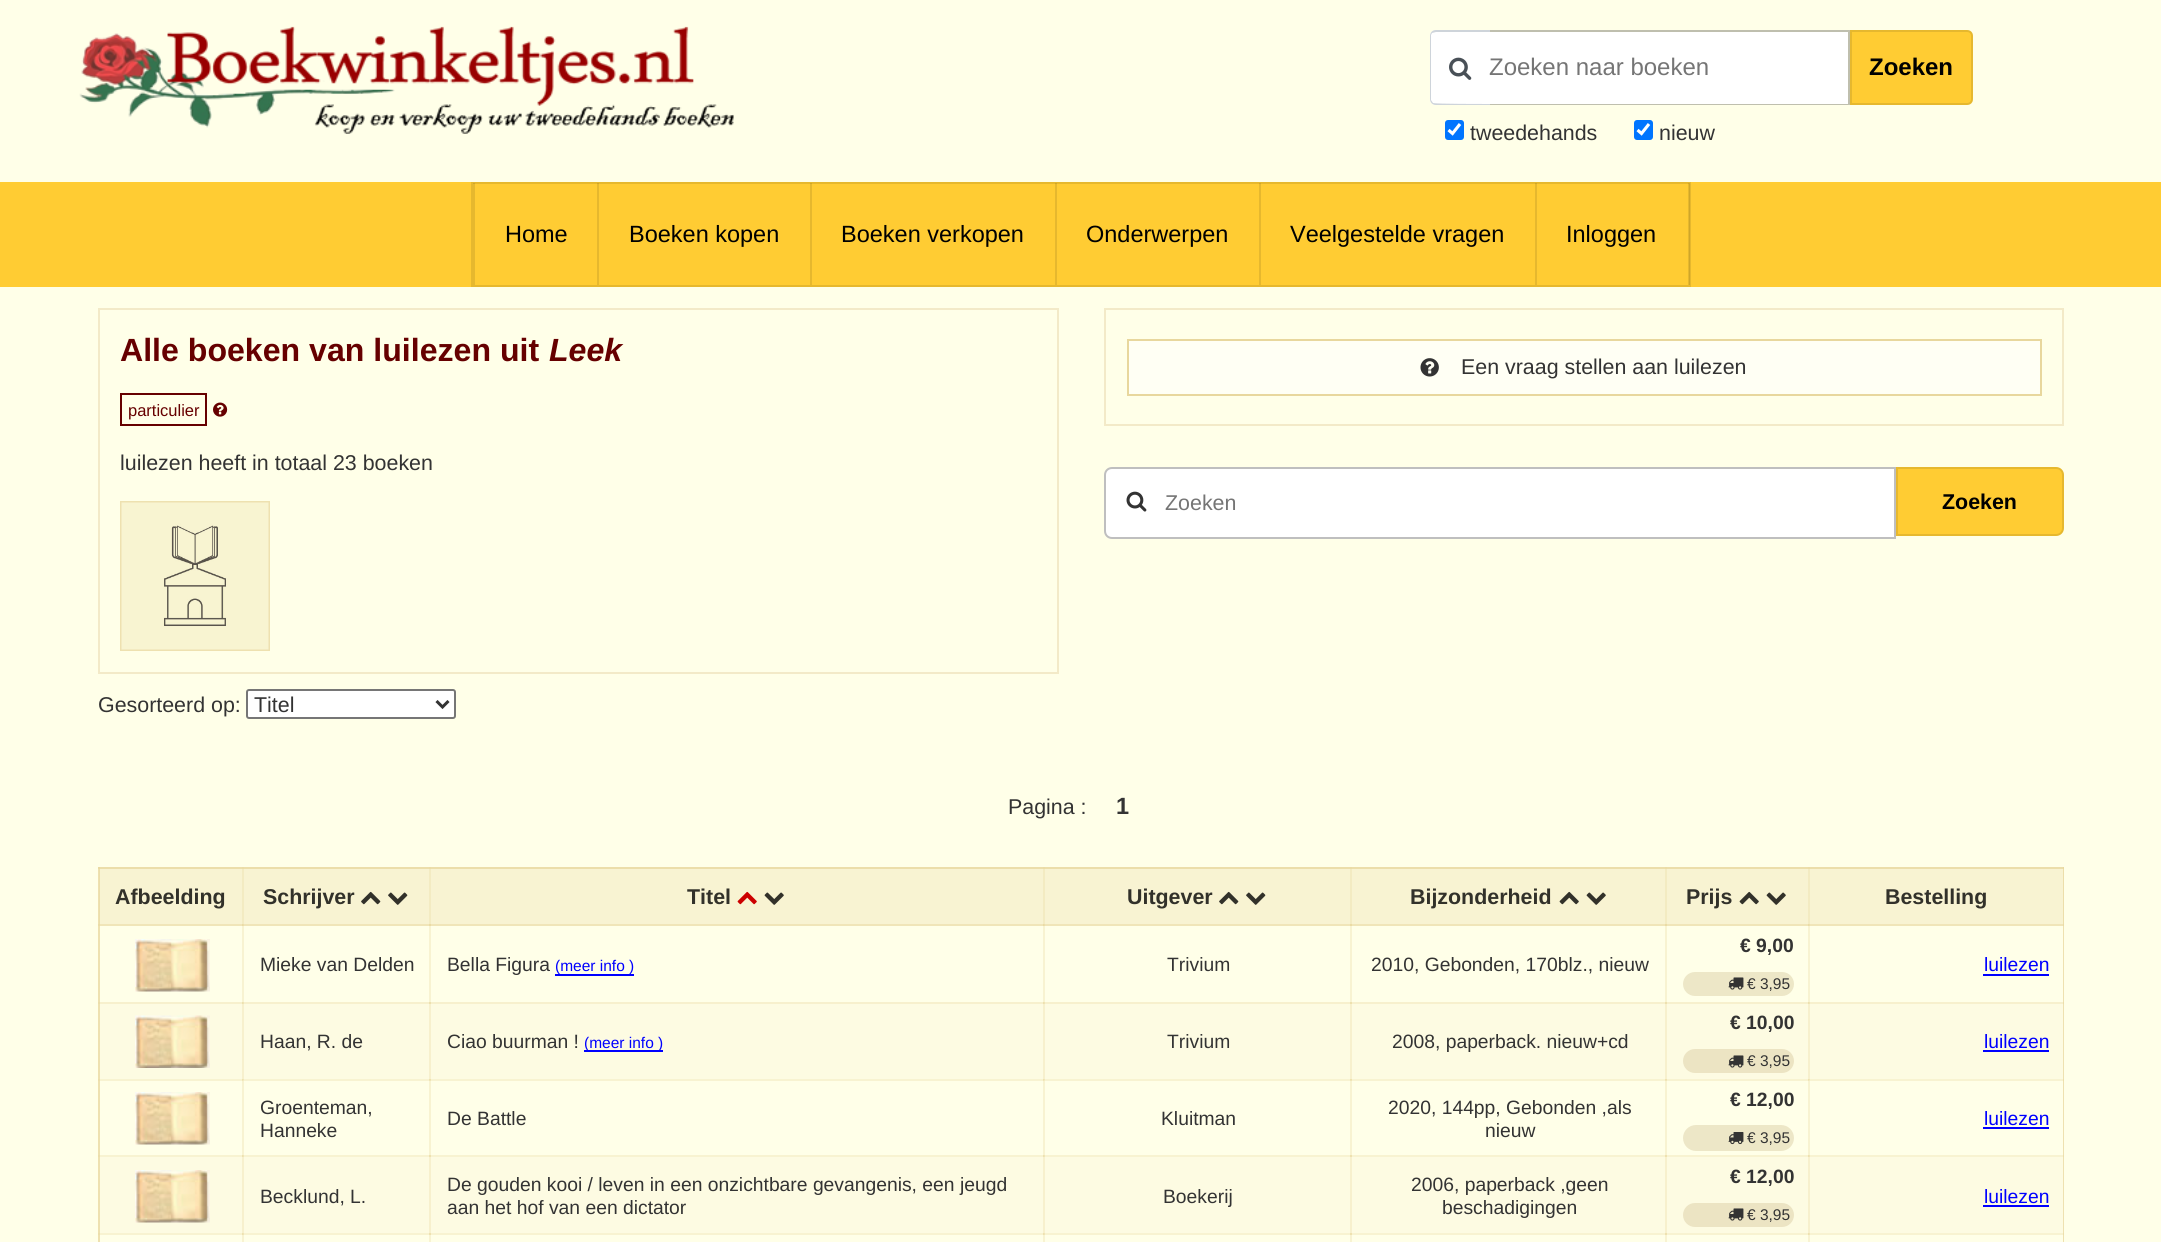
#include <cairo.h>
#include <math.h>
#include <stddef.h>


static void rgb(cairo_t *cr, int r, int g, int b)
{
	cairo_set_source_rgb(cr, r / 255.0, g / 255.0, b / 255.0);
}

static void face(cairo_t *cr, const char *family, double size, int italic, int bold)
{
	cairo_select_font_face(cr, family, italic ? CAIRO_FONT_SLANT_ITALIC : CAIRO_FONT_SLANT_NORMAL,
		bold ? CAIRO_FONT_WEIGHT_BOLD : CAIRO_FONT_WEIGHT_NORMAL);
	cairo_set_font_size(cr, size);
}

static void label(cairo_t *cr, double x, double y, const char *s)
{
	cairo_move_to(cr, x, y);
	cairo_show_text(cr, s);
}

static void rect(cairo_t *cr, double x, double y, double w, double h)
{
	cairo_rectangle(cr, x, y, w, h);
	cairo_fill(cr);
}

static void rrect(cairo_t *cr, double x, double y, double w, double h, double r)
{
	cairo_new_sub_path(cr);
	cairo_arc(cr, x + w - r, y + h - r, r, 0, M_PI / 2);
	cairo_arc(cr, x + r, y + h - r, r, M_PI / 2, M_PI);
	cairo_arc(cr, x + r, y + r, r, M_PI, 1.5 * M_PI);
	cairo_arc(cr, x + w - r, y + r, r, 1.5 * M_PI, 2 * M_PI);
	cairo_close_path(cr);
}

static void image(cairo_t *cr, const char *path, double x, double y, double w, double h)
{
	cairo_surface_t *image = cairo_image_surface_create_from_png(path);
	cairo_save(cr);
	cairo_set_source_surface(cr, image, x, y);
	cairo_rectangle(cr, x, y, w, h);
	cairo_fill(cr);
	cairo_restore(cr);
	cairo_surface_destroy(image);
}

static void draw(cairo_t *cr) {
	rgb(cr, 255, 255, 232);
	cairo_paint(cr);
	rgb(cr, 248, 243, 209);
	rect(cr, 242, 924, 2, 80);
	rect(cr, 429, 924, 2, 80);
	rect(cr, 1043, 924, 2, 80);
	rect(cr, 1350, 924, 2, 80);
	rect(cr, 1665, 924, 2, 80);
	rect(cr, 1808, 924, 2, 80);
	rect(cr, 98, 1079, 1966, 2);
	rect(cr, 98, 1155, 145, 2);
	rect(cr, 242, 1079, 2, 78);
	rgb(cr, 243, 235, 193);
	rect(cr, 242, 1080, 2, 1);
	rgb(cr, 240, 229, 182);
	rect(cr, 242, 1079, 1, 2);
	rect(cr, 242, 1079, 2, 1);
	rgb(cr, 238, 225, 175);
	rect(cr, 242, 1079, 1, 1);
	rgb(cr, 248, 243, 209);
	rect(cr, 242, 1155, 189, 2);
	rect(cr, 429, 1079, 2, 78);
	rgb(cr, 240, 229, 182);
	rect(cr, 429, 1080, 2, 1);
	rgb(cr, 238, 225, 175);
	rect(cr, 429, 1079, 2, 1);
	rgb(cr, 248, 243, 209);
	rect(cr, 429, 1155, 615, 2);
	rect(cr, 1043, 1079, 2, 78);
	rgb(cr, 243, 235, 193);
	rect(cr, 1043, 1080, 2, 1);
	rgb(cr, 240, 229, 182);
	rect(cr, 1043, 1079, 1, 2);
	rect(cr, 1043, 1079, 2, 1);
	rgb(cr, 238, 225, 175);
	rect(cr, 1043, 1079, 1, 1);
	rgb(cr, 248, 243, 209);
	rect(cr, 1043, 1155, 309, 2);
	rect(cr, 1350, 1079, 2, 78);
	rgb(cr, 240, 229, 182);
	rect(cr, 1350, 1080, 2, 1);
	rgb(cr, 238, 225, 175);
	rect(cr, 1350, 1079, 2, 1);
	rgb(cr, 248, 243, 209);
	rect(cr, 1350, 1155, 317, 2);
	rect(cr, 1665, 1079, 2, 78);
	rgb(cr, 240, 229, 182);
	rect(cr, 1665, 1080, 2, 1);
	rgb(cr, 238, 225, 175);
	rect(cr, 1665, 1079, 2, 1);
	rgb(cr, 248, 243, 209);
	rect(cr, 1665, 1155, 144, 2);
	rect(cr, 1808, 1079, 2, 78);
	rgb(cr, 243, 235, 193);
	rect(cr, 1808, 1080, 2, 1);
	rgb(cr, 240, 229, 182);
	rect(cr, 1808, 1079, 1, 2);
	rect(cr, 1808, 1079, 2, 1);
	rgb(cr, 238, 225, 175);
	rect(cr, 1808, 1079, 1, 1);
	rgb(cr, 248, 243, 209);
	rect(cr, 1808, 1155, 256, 2);
	rect(cr, 98, 1233, 1966, 2);
	rgb(cr, 240, 229, 182);
	rect(cr, 242, 1155, 2, 2);
	rgb(cr, 238, 225, 175);
	rect(cr, 242, 1155, 1, 2);
	rect(cr, 429, 1155, 2, 2);
	rgb(cr, 240, 229, 182);
	rect(cr, 1043, 1155, 2, 2);
	rgb(cr, 238, 225, 175);
	rect(cr, 1043, 1155, 1, 2);
	rect(cr, 1350, 1155, 2, 2);
	rect(cr, 1665, 1155, 2, 2);
	rgb(cr, 240, 229, 182);
	rect(cr, 1808, 1155, 2, 2);
	rgb(cr, 238, 225, 175);
	rect(cr, 1808, 1155, 1, 2);
	rgb(cr, 238, 225, 176);
	rect(cr, 98, 867, 2, 375);
	rgb(cr, 235, 220, 167);
	rect(cr, 98, 924, 2, 2);
	rgb(cr, 236, 222, 170);
	rect(cr, 98, 1002, 2, 2);
	rect(cr, 98, 1079, 2, 2);
	rect(cr, 98, 1155, 2, 2);
	rect(cr, 98, 1233, 2, 2);
	rgb(cr, 238, 225, 176);
	rect(cr, 2063, 926, 1, 316);
	rgb(cr, 236, 222, 170);
	rect(cr, 2063, 1079, 1, 2);
	rect(cr, 2063, 1155, 1, 2);
	rect(cr, 2063, 1233, 1, 2);
	rgb(cr, 234, 218, 162);
	rect(cr, 98, 867, 2, 2);
	image(cr, "image0.png", 79, 26, 655, 108);
	rgb(cr, 255, 255, 255);
	cairo_new_path(cr);
	cairo_move_to(cr, 1436, 30);
	cairo_line_to(cr, 1490, 30);
	cairo_line_to(cr, 1490, 105);
	cairo_line_to(cr, 1436, 105);
	cairo_curve_to(cr, 1432.5, 105, 1430, 102.5, 1430, 99);
	cairo_line_to(cr, 1430, 36);
	cairo_curve_to(cr, 1430, 32.5, 1432.5, 30, 1436, 30);
	cairo_close_path(cr);
	cairo_fill(cr);
	rgb(cr, 206, 212, 218);
	cairo_set_fill_rule(cr, CAIRO_FILL_RULE_EVEN_ODD);
	cairo_new_path(cr);
	cairo_move_to(cr, 1436, 30);
	cairo_line_to(cr, 1490, 30);
	cairo_line_to(cr, 1490, 105);
	cairo_line_to(cr, 1436, 105);
	cairo_curve_to(cr, 1432, 105, 1430, 102, 1430, 99);
	cairo_line_to(cr, 1430, 36);
	cairo_curve_to(cr, 1430, 33, 1432, 30, 1436, 30);
	cairo_close_path(cr);
	cairo_move_to(cr, 1436, 32);
	cairo_line_to(cr, 1490, 32);
	cairo_line_to(cr, 1490, 104);
	cairo_curve_to(cr, 1483, 104, 1436, 104, 1433, 103);
	cairo_line_to(cr, 1431, 100);
	cairo_line_to(cr, 1431, 35);
	cairo_line_to(cr, 1432, 33);
	cairo_close_path(cr);
	cairo_fill(cr);
	image(cr, "image1.png", 1449, 57, 23, 23);
	rgb(cr, 255, 255, 255);
	rect(cr, 1490, 32, 358, 72);
	rgb(cr, 191, 191, 174);
	cairo_set_fill_rule(cr, CAIRO_FILL_RULE_WINDING);
	cairo_new_path(cr);
	cairo_move_to(cr, 1490, 30);
	cairo_line_to(cr, 1850, 30);
	cairo_line_to(cr, 1848, 32);
	cairo_line_to(cr, 1490, 32);
	cairo_close_path(cr);
	cairo_fill(cr);
	cairo_set_source_rgba(cr, 0, 0, 0, 0.25);
	cairo_new_path(cr);
	cairo_move_to(cr, 1850, 30);
	cairo_line_to(cr, 1850, 105);
	cairo_line_to(cr, 1848, 104);
	cairo_line_to(cr, 1848, 32);
	cairo_close_path(cr);
	cairo_fill(cr);
	cairo_new_path(cr);
	cairo_move_to(cr, 1850, 105);
	cairo_line_to(cr, 1490, 105);
	cairo_line_to(cr, 1490, 104);
	cairo_line_to(cr, 1848, 104);
	cairo_close_path(cr);
	cairo_fill(cr);
	face(cr, "Liberation Sans", 24, 0, 0);
	rgb(cr, 117, 117, 117);
	label(cr, 1489, 75, "Zoeken naar boeken");
	rgb(cr, 255, 204, 51);
	cairo_new_path(cr);
	cairo_move_to(cr, 1850, 30);
	cairo_line_to(cr, 1967, 30);
	cairo_curve_to(cr, 1970.5, 30, 1973, 32.5, 1973, 36);
	cairo_line_to(cr, 1973, 99);
	cairo_curve_to(cr, 1973, 102.5, 1970.5, 105, 1967, 105);
	cairo_line_to(cr, 1850, 105);
	cairo_close_path(cr);
	cairo_fill(cr);
	cairo_new_path(cr);
	cairo_move_to(cr, 1851, 31);
	cairo_line_to(cr, 1967, 31);
	cairo_curve_to(cr, 1970, 31, 1972, 33, 1972, 36);
	cairo_line_to(cr, 1972, 99);
	cairo_curve_to(cr, 1972, 102, 1970, 104, 1967, 104);
	cairo_line_to(cr, 1851, 104);
	cairo_close_path(cr);
	cairo_set_source_rgba(cr, 0, 0, 0, 0.1);
	cairo_stroke(cr);
	face(cr, "Liberation Sans", 24, 0, 1);
	rgb(cr, 0, 0, 0);
	label(cr, 1869, 75, "Zoeken");
	rgb(cr, 0, 117, 255);
	rrect(cr, 1445, 120, 19, 20, 3);
	cairo_fill(cr);
	cairo_new_path(cr);
	cairo_move_to(cr, 1448.5, 130);
	cairo_line_to(cr, 1452.5, 133.5);
	cairo_line_to(cr, 1460, 124);
	rgb(cr, 255, 255, 255);
	cairo_set_line_width(cr, 3.1);
	cairo_stroke(cr);
	face(cr, "Liberation Sans", 21.4, 0, 0);
	rgb(cr, 51, 51, 51);
	label(cr, 1470, 140, "tweedehands");
	rgb(cr, 0, 117, 255);
	rrect(cr, 1634, 120, 19, 20, 3);
	cairo_fill(cr);
	cairo_new_path(cr);
	cairo_move_to(cr, 1637.5, 130);
	cairo_line_to(cr, 1641.5, 133.5);
	cairo_line_to(cr, 1649, 124);
	rgb(cr, 255, 255, 255);
	cairo_stroke(cr);
	rgb(cr, 51, 51, 51);
	label(cr, 1659, 140, "nieuw");
	rgb(cr, 255, 204, 51);
	rect(cr, 0, 182, 2161, 105);
	cairo_rectangle(cr, 472, 183, 1218, 103);
	rgb(cr, 230, 184, 46);
	cairo_set_line_width(cr, 2);
	cairo_stroke(cr);
	cairo_set_source_rgba(cr, 0, 0, 0, 0.1);
	rect(cr, 597, 183, 2, 102);
	rect(cr, 473, 183, 2, 102);
	face(cr, "Liberation Sans", 23.5, 0, 0);
	rgb(cr, 0, 0, 0);
	label(cr, 505, 242, "Home");
	cairo_set_source_rgba(cr, 0, 0, 0, 0.1);
	rect(cr, 810, 183, 2, 102);
	rgb(cr, 0, 0, 0);
	label(cr, 629, 242, "Boeken kopen");
	cairo_set_source_rgba(cr, 0, 0, 0, 0.1);
	rect(cr, 1055, 183, 2, 102);
	rgb(cr, 0, 0, 0);
	label(cr, 841, 242, "Boeken verkopen");
	cairo_set_source_rgba(cr, 0, 0, 0, 0.1);
	rect(cr, 1259, 183, 2, 102);
	rgb(cr, 0, 0, 0);
	label(cr, 1086, 242, "Onderwerpen");
	cairo_set_source_rgba(cr, 0, 0, 0, 0.1);
	rect(cr, 1535, 183, 2, 102);
	rgb(cr, 0, 0, 0);
	label(cr, 1290, 242, "Veelgestelde vragen");
	cairo_set_source_rgba(cr, 0, 0, 0, 0.1);
	rect(cr, 1688, 183, 2, 102);
	rgb(cr, 0, 0, 0);
	label(cr, 1566, 242, "Inloggen");
	cairo_rectangle(cr, 99, 309, 959, 364);
	rgb(cr, 243, 234, 200);
	cairo_stroke(cr);
	face(cr, "Liberation Sans", 32.1, 0, 1);
	rgb(cr, 102, 0, 0);
	label(cr, 120, 361, "Alle boeken van luilezen uit");
	face(cr, "Liberation Sans", 32.1, 1, 1);
	label(cr, 549, 361, "Leek");
	cairo_rectangle(cr, 121, 394, 85, 31);
	cairo_stroke(cr);
	face(cr, "Liberation Sans", 16.5, 0, 0);
	label(cr, 128, 416, "particulier");
	image(cr, "image2.png", 213, 402, 15, 15);
	face(cr, "Liberation Sans", 21.4, 0, 0);
	rgb(cr, 51, 51, 51);
	label(cr, 120, 470, "luilezen heeft in totaal 23 boeken");
	cairo_rectangle(cr, 121, 502, 148, 148);
	rgb(cr, 238, 225, 176);
	cairo_stroke(cr);
	image(cr, "image3.png", 121, 502, 148, 148);
	cairo_rectangle(cr, 1105, 309, 958, 116);
	rgb(cr, 243, 234, 200);
	cairo_stroke(cr);
	rgb(cr, 255, 255, 244);
	cairo_rectangle(cr, 1128, 340, 913, 55);
	cairo_fill_preserve(cr);
	rgb(cr, 232, 215, 157);
	cairo_stroke(cr);
	image(cr, "image4.png", 1420, 358, 19, 19);
	rgb(cr, 51, 51, 51);
	label(cr, 1461, 374, "Een vraag stellen aan luilezen");
	rgb(cr, 255, 255, 255);
	cairo_new_path(cr);
	cairo_move_to(cr, 1112, 467);
	cairo_line_to(cr, 1896, 467);
	cairo_line_to(cr, 1896, 539);
	cairo_line_to(cr, 1112, 539);
	cairo_curve_to(cr, 1107.5, 539, 1104, 535.5, 1104, 531);
	cairo_line_to(cr, 1104, 475);
	cairo_curve_to(cr, 1104, 470.5, 1107.5, 467, 1112, 467);
	cairo_close_path(cr);
	cairo_fill(cr);
	cairo_new_path(cr);
	cairo_move_to(cr, 1112, 468);
	cairo_line_to(cr, 1895, 468);
	cairo_line_to(cr, 1895, 538);
	cairo_line_to(cr, 1112, 538);
	cairo_curve_to(cr, 1108, 538, 1105, 535, 1105, 531);
	cairo_line_to(cr, 1105, 475);
	cairo_curve_to(cr, 1105, 471, 1108, 468, 1112, 468);
	cairo_close_path(cr);
	cairo_set_source_rgba(cr, 0, 0, 0, 0.25);
	cairo_stroke(cr);
	image(cr, "image5.png", 1126, 491, 21, 21);
	rgb(cr, 117, 117, 117);
	label(cr, 1165, 510, "Zoeken");
	rgb(cr, 255, 204, 51);
	cairo_new_path(cr);
	cairo_move_to(cr, 1896, 467);
	cairo_line_to(cr, 2056, 467);
	cairo_curve_to(cr, 2060.5, 467, 2064, 470.5, 2064, 475);
	cairo_line_to(cr, 2064, 528);
	cairo_curve_to(cr, 2064, 532.5, 2060.5, 536, 2056, 536);
	cairo_line_to(cr, 1896, 536);
	cairo_close_path(cr);
	cairo_fill(cr);
	cairo_new_path(cr);
	cairo_move_to(cr, 1897, 468);
	cairo_line_to(cr, 2056, 468);
	cairo_curve_to(cr, 2060, 468, 2063, 471, 2063, 475);
	cairo_line_to(cr, 2063, 528);
	cairo_curve_to(cr, 2063, 532, 2060, 535, 2056, 535);
	cairo_line_to(cr, 1897, 535);
	cairo_close_path(cr);
	cairo_set_source_rgba(cr, 0, 0, 0, 0.1);
	cairo_stroke(cr);
	face(cr, "Liberation Sans", 21.4, 0, 1);
	rgb(cr, 0, 0, 0);
	label(cr, 1942, 509, "Zoeken");
	face(cr, "Liberation Sans", 21.4, 0, 0);
	rgb(cr, 51, 51, 51);
	label(cr, 98, 712, "Gesorteerd op:");
	rgb(cr, 255, 255, 255);
	rrect(cr, 247, 690, 208, 28, 2);
	cairo_fill_preserve(cr);
	rgb(cr, 118, 118, 118);
	cairo_stroke(cr);
	cairo_new_path(cr);
	cairo_move_to(cr, 436.5, 701);
	cairo_line_to(cr, 442.5, 707);
	cairo_line_to(cr, 448.5, 701);
	rgb(cr, 51, 51, 51);
	cairo_set_line_width(cr, 3);
	cairo_stroke(cr);
	label(cr, 254, 712, "Titel");
	label(cr, 1008, 814, "Pagina :");
	face(cr, "Liberation Sans", 23.5, 0, 1);
	label(cr, 1116, 814, "1");
	rgb(cr, 248, 243, 210);
	rect(cr, 100, 869, 142, 55);
	rgb(cr, 240, 229, 184);
	rect(cr, 99, 924, 144, 2);
	rgb(cr, 243, 235, 194);
	rect(cr, 242, 867, 2, 59);
	rgb(cr, 234, 219, 164);
	rect(cr, 242, 924, 1, 2);
	rgb(cr, 236, 222, 170);
	rect(cr, 99, 867, 1, 59);
	rgb(cr, 234, 219, 164);
	rect(cr, 99, 924, 1, 2);
	rgb(cr, 236, 222, 170);
	rect(cr, 99, 867, 330, 2);
	rgb(cr, 235, 220, 166);
	rect(cr, 242, 867, 2, 2);
	rgb(cr, 233, 217, 160);
	rect(cr, 99, 867, 1, 2);
	face(cr, "Liberation Sans", 21.4, 0, 1);
	rgb(cr, 50, 49, 42);
	label(cr, 115, 904, "Afbeelding");
	rgb(cr, 248, 243, 210);
	rect(cr, 244, 869, 185, 55);
	rgb(cr, 240, 229, 184);
	rect(cr, 243, 924, 186, 2);
	rgb(cr, 236, 222, 170);
	rect(cr, 243, 924, 1, 2);
	rgb(cr, 50, 49, 42);
	label(cr, 263, 904, "Schrijver");
	image(cr, "image6.png", 361, 891, 20, 14);
	image(cr, "image7.png", 388, 892, 20, 13);
	rgb(cr, 248, 243, 210);
	rect(cr, 431, 869, 612, 55);
	rgb(cr, 243, 235, 194);
	rect(cr, 429, 867, 2, 59);
	rgb(cr, 240, 229, 184);
	rect(cr, 429, 924, 614, 2);
	rgb(cr, 234, 219, 164);
	rect(cr, 429, 924, 2, 2);
	rgb(cr, 236, 222, 170);
	rect(cr, 429, 867, 614, 2);
	rgb(cr, 235, 220, 166);
	rect(cr, 429, 867, 2, 2);
	rgb(cr, 50, 49, 42);
	label(cr, 687, 904, "Titel");
	image(cr, "image8.png", 737, 891, 20, 14);
	image(cr, "image9.png", 764, 892, 20, 13);
	rgb(cr, 248, 243, 210);
	rect(cr, 1045, 869, 305, 55);
	rgb(cr, 243, 235, 194);
	rect(cr, 1043, 867, 2, 59);
	rgb(cr, 240, 229, 184);
	rect(cr, 1043, 924, 766, 2);
	rgb(cr, 243, 235, 194);
	rect(cr, 1350, 867, 2, 59);
	rgb(cr, 236, 222, 170);
	rect(cr, 1043, 924, 2, 2);
	rgb(cr, 234, 219, 164);
	rect(cr, 1043, 924, 1, 2);
	rect(cr, 1350, 924, 2, 2);
	rgb(cr, 236, 222, 170);
	rect(cr, 1043, 867, 309, 2);
	rgb(cr, 235, 220, 166);
	rect(cr, 1043, 867, 2, 2);
	rect(cr, 1350, 867, 2, 2);
	rgb(cr, 50, 49, 42);
	label(cr, 1127, 904, "Uitgever");
	image(cr, "image6.png", 1219, 891, 20, 14);
	image(cr, "image7.png", 1246, 892, 20, 13);
	rgb(cr, 248, 243, 210);
	rect(cr, 1352, 869, 313, 55);
	rgb(cr, 243, 235, 194);
	rect(cr, 1665, 867, 2, 59);
	rgb(cr, 234, 219, 164);
	rect(cr, 1665, 924, 2, 2);
	rgb(cr, 236, 222, 170);
	rect(cr, 1352, 867, 315, 2);
	rgb(cr, 235, 220, 166);
	rect(cr, 1665, 867, 2, 2);
	rgb(cr, 50, 49, 42);
	label(cr, 1410, 904, "Bijzonderheid");
	image(cr, "image10.png", 1559, 891, 20, 14);
	image(cr, "image9.png", 1586, 892, 20, 13);
	rgb(cr, 248, 243, 210);
	rect(cr, 1667, 869, 141, 55);
	rgb(cr, 243, 235, 194);
	rect(cr, 1808, 867, 2, 59);
	rgb(cr, 234, 219, 164);
	rect(cr, 1808, 924, 1, 2);
	rgb(cr, 236, 222, 170);
	rect(cr, 1667, 867, 142, 2);
	rgb(cr, 235, 220, 166);
	rect(cr, 1808, 867, 1, 2);
	rgb(cr, 50, 49, 42);
	label(cr, 1686, 904, "Prijs");
	image(cr, "image10.png", 1739, 891, 20, 14);
	image(cr, "image9.png", 1766, 892, 20, 13);
	rgb(cr, 248, 243, 210);
	rect(cr, 1810, 869, 253, 55);
	rgb(cr, 240, 229, 184);
	rect(cr, 1809, 924, 255, 2);
	rgb(cr, 236, 222, 170);
	rect(cr, 1809, 924, 1, 2);
	rect(cr, 2063, 867, 1, 59);
	rgb(cr, 234, 219, 164);
	rect(cr, 2063, 924, 1, 2);
	rgb(cr, 236, 222, 170);
	rect(cr, 1809, 867, 255, 2);
	rgb(cr, 235, 220, 166);
	rect(cr, 1809, 867, 1, 2);
	rgb(cr, 233, 217, 160);
	rect(cr, 2063, 867, 1, 2);
	rgb(cr, 50, 49, 42);
	label(cr, 1885, 904, "Bestelling");
	image(cr, "image11.png", 135, 939, 75, 53);
	face(cr, "Liberation Sans", 19.3, 0, 0);
	rgb(cr, 51, 51, 51);
	label(cr, 260, 971, "Mieke van Delden");
	label(cr, 447, 971, "Bella Figura");
	rgb(cr, 0, 0, 255);
	rect(cr, 555, 974, 79, 2);
	face(cr, "Liberation Sans", 15.5, 0, 0);
	label(cr, 555, 971, "(meer info )");
	face(cr, "Liberation Sans", 19.3, 0, 0);
	rgb(cr, 51, 51, 51);
	label(cr, 1167, 971, "Trivium");
	label(cr, 1371, 971, "2010, Gebonden, 170blz., nieuw");
	face(cr, "Liberation Sans", 19.3, 0, 1);
	label(cr, 1740, 952, "€ 9,00");
	rgb(cr, 237, 231, 199);
	rrect(cr, 1683, 972, 111, 24, 12);
	cairo_fill(cr);
	image(cr, "image12.png", 1728, 977, 16, 13);
	face(cr, "Liberation Sans", 15.5, 0, 0);
	rgb(cr, 51, 51, 51);
	label(cr, 1747, 989, "€ 3,95");
	face(cr, "Liberation Sans", 19.3, 0, 0);
	rgb(cr, 0, 0, 255);
	label(cr, 1984, 971, "luilezen");
	rect(cr, 1983, 974, 66, 2);
	rgb(cr, 253, 251, 226);
	rect(cr, 100, 1004, 1963, 75);
	rgb(cr, 247, 240, 205);
	rect(cr, 99, 1002, 1965, 2);
	rect(cr, 242, 1002, 2, 77);
	rgb(cr, 239, 228, 181);
	rect(cr, 242, 1002, 2, 2);
	rgb(cr, 237, 224, 174);
	rect(cr, 242, 1002, 1, 2);
	rgb(cr, 247, 240, 205);
	rect(cr, 429, 1002, 2, 77);
	rgb(cr, 237, 224, 174);
	rect(cr, 429, 1002, 2, 2);
	rgb(cr, 247, 240, 205);
	rect(cr, 1043, 1002, 2, 77);
	rgb(cr, 239, 228, 181);
	rect(cr, 1043, 1002, 2, 2);
	rgb(cr, 237, 224, 174);
	rect(cr, 1043, 1002, 1, 2);
	rgb(cr, 247, 240, 205);
	rect(cr, 1350, 1002, 2, 77);
	rgb(cr, 237, 224, 174);
	rect(cr, 1350, 1002, 2, 2);
	rgb(cr, 247, 240, 205);
	rect(cr, 1665, 1002, 2, 77);
	rgb(cr, 237, 224, 174);
	rect(cr, 1665, 1002, 2, 2);
	rgb(cr, 247, 240, 205);
	rect(cr, 1808, 1002, 2, 77);
	rgb(cr, 239, 228, 181);
	rect(cr, 1808, 1002, 2, 2);
	rgb(cr, 237, 224, 174);
	rect(cr, 1808, 1002, 1, 2);
	rect(cr, 99, 1002, 1, 2);
	rgb(cr, 235, 221, 169);
	rect(cr, 99, 1002, 1, 2);
	rgb(cr, 237, 224, 174);
	rect(cr, 2063, 1002, 1, 2);
	rgb(cr, 235, 221, 169);
	rect(cr, 2063, 1002, 1, 2);
	image(cr, "image13.png", 135, 1015, 75, 53);
	rgb(cr, 51, 51, 51);
	label(cr, 260, 1048, "Haan, R. de");
	label(cr, 447, 1048, "Ciao buurman !");
	rgb(cr, 0, 0, 255);
	rect(cr, 584, 1050, 79, 2);
	face(cr, "Liberation Sans", 15.5, 0, 0);
	label(cr, 584, 1048, "(meer info )");
	face(cr, "Liberation Sans", 19.3, 0, 0);
	rgb(cr, 51, 51, 51);
	label(cr, 1167, 1048, "Trivium");
	label(cr, 1392, 1048, "2008, paperback. nieuw+cd");
	face(cr, "Liberation Sans", 19.3, 0, 1);
	label(cr, 1730, 1029, "€ 10,00");
	rgb(cr, 236, 228, 195);
	rrect(cr, 1683, 1049, 111, 24, 12);
	cairo_fill(cr);
	image(cr, "image14.png", 1728, 1055, 16, 13);
	face(cr, "Liberation Sans", 15.5, 0, 0);
	rgb(cr, 51, 51, 51);
	label(cr, 1747, 1066, "€ 3,95");
	face(cr, "Liberation Sans", 19.3, 0, 0);
	rgb(cr, 0, 0, 255);
	label(cr, 1984, 1048, "luilezen");
	rect(cr, 1983, 1050, 66, 2);
	image(cr, "image11.png", 135, 1092, 75, 53);
	rgb(cr, 51, 51, 51);
	label(cr, 260, 1114, "Groenteman,");
	label(cr, 260, 1137, "Hanneke");
	label(cr, 447, 1125, "De Battle");
	label(cr, 1161, 1125, "Kluitman");
	label(cr, 1388, 1114, "2020, 144pp, Gebonden ,als");
	label(cr, 1485, 1137, "nieuw");
	face(cr, "Liberation Sans", 19.3, 0, 1);
	label(cr, 1730, 1106, "€ 12,00");
	rgb(cr, 237, 231, 199);
	rrect(cr, 1683, 1125, 111, 26, 13);
	cairo_fill(cr);
	image(cr, "image15.png", 1728, 1132, 16, 13);
	face(cr, "Liberation Sans", 15.5, 0, 0);
	rgb(cr, 51, 51, 51);
	label(cr, 1747, 1143, "€ 3,95");
	face(cr, "Liberation Sans", 19.3, 0, 0);
	rgb(cr, 0, 0, 255);
	label(cr, 1984, 1125, "luilezen");
	rect(cr, 1983, 1127, 66, 2);
	rgb(cr, 253, 251, 226);
	rect(cr, 100, 1157, 1963, 76);
	rgb(cr, 247, 240, 205);
	rect(cr, 242, 1157, 2, 76);
	rect(cr, 429, 1157, 2, 76);
	rect(cr, 1043, 1157, 2, 76);
	rect(cr, 1350, 1157, 2, 76);
	rect(cr, 1665, 1157, 2, 76);
	rect(cr, 1808, 1157, 2, 76);
	image(cr, "image16.png", 135, 1170, 75, 53);
	rgb(cr, 51, 51, 51);
	label(cr, 260, 1203, "Becklund, L.");
	label(cr, 447, 1191, "De gouden kooi / leven in een onzichtbare gevangenis, een jeugd");
	label(cr, 447, 1214, "aan het hof van een dictator");
	label(cr, 1163, 1203, "Boekerij");
	label(cr, 1411, 1191, "2006, paperback ,geen");
	label(cr, 1442, 1214, "beschadigingen");
	face(cr, "Liberation Sans", 19.3, 0, 1);
	label(cr, 1730, 1183, "€ 12,00");
	rgb(cr, 236, 228, 195);
	rrect(cr, 1683, 1203, 111, 24, 12);
	cairo_fill(cr);
	image(cr, "image14.png", 1728, 1208, 16, 13);
	face(cr, "Liberation Sans", 15.5, 0, 0);
	rgb(cr, 51, 51, 51);
	label(cr, 1747, 1220, "€ 3,95");
	face(cr, "Liberation Sans", 19.3, 0, 0);
	rgb(cr, 0, 0, 255);
	label(cr, 1984, 1203, "luilezen");
	rect(cr, 1983, 1205, 66, 2);
	rgb(cr, 248, 243, 210);
	rect(cr, 242, 1233, 2, 9);
	rgb(cr, 240, 229, 183);
	rect(cr, 242, 1233, 2, 2);
	rgb(cr, 238, 225, 175);
	rect(cr, 242, 1233, 1, 2);
	rgb(cr, 248, 243, 210);
	rect(cr, 429, 1233, 2, 9);
	rgb(cr, 238, 225, 175);
	rect(cr, 429, 1233, 2, 2);
	rgb(cr, 248, 243, 210);
	rect(cr, 1043, 1233, 2, 9);
	rgb(cr, 240, 229, 183);
	rect(cr, 1043, 1233, 2, 2);
	rgb(cr, 238, 225, 175);
	rect(cr, 1043, 1233, 1, 2);
	rgb(cr, 248, 243, 210);
	rect(cr, 1350, 1233, 2, 9);
	rgb(cr, 238, 225, 175);
	rect(cr, 1350, 1233, 2, 2);
	rgb(cr, 248, 243, 210);
	rect(cr, 1665, 1233, 2, 9);
	rgb(cr, 238, 225, 175);
	rect(cr, 1665, 1233, 2, 2);
	rgb(cr, 248, 243, 210);
	rect(cr, 1808, 1233, 2, 9);
	rgb(cr, 240, 229, 183);
	rect(cr, 1808, 1233, 2, 2);
	rgb(cr, 238, 225, 175);
	rect(cr, 1808, 1233, 1, 2);
}

int main(void) {
	cairo_surface_t *surface = cairo_image_surface_create(CAIRO_FORMAT_RGB24, 2161, 1242);
	cairo_t *cr = cairo_create(surface);
	cairo_font_options_t *options = cairo_font_options_create();
	cairo_font_options_set_hint_metrics(options, CAIRO_HINT_METRICS_OFF);
	cairo_font_options_set_hint_style(options, CAIRO_HINT_STYLE_NONE);
	cairo_set_font_options(cr, options);
	cairo_set_miter_limit(cr, 4);
	draw(cr);
	cairo_surface_write_to_png(surface, "render.png");
	cairo_font_options_destroy(options);
	cairo_destroy(cr);
	cairo_surface_destroy(surface);
	return 0;
}
